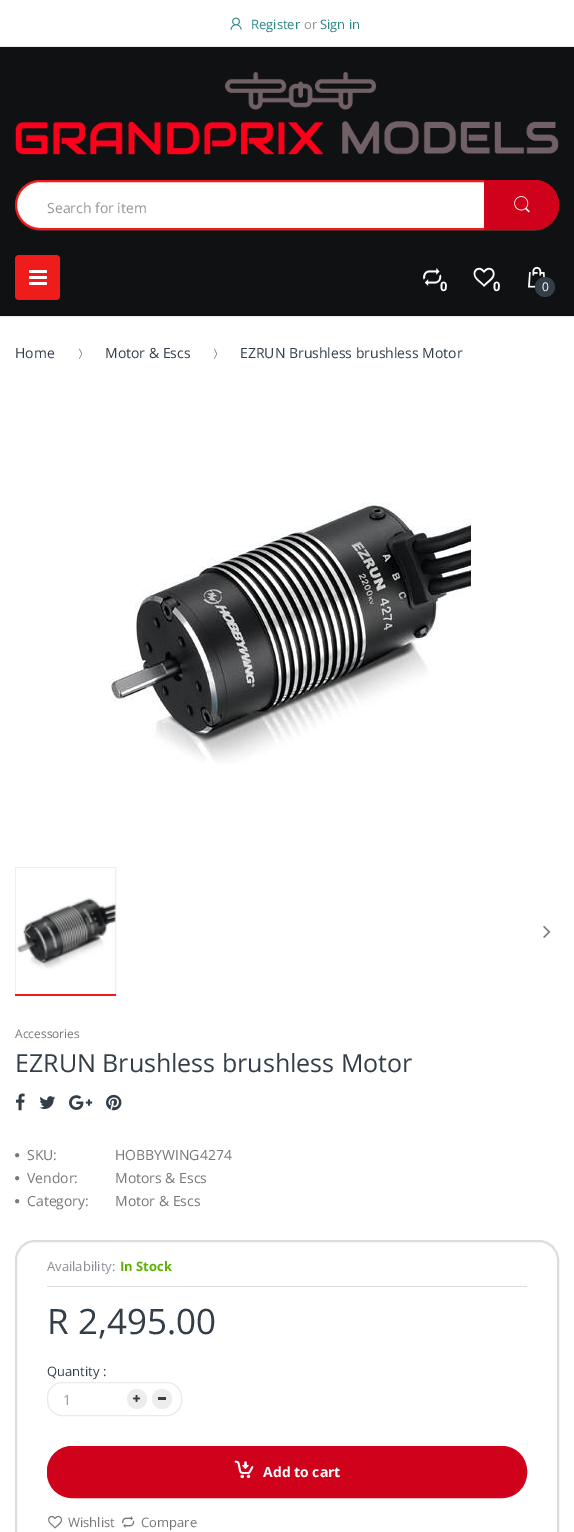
%!PS-Adobe-3.0
%%BoundingBox: 0 0 574 1532
%%LanguageLevel: 3
%%Pages: 1
%%EndComments
%%BeginProlog
/setink { dup -16 bitshift 255 div exch dup -8 bitshift 255 and 255 div exch 255 and 255 div setrgbcolor } def
/usefont { [ exch dup neg 0 0 3 -1 roll 0 0 ] selectfont } def
/disc { newpath 0 360 arc closepath } def
/rrect { 5 dict begin { /r /h /w /y /x } { exch def } forall
  x r add y moveto x w add y 2 copy h add r arct x w add y h add x 1 index r arct
  x y h add x y r arct x y 2 copy exch w add exch r arct closepath end } def
/drawimage { 5 dict begin { /h /w /y /x /name } { exch def } forall
  gsave x y translate w h scale
  w h 8 [w 0 0 h 0 0] name (r) file false 3 colorimage grestore end } def
%%EndProlog
%%BeginSetup
<< /PageSize [574 1532] >> setpagedevice
%%EndSetup
%%Page: 1 1
0 1532 translate 1 -1 scale
4 setmiterlimit
16#FFFFFF setink
0 0 574 1532 rectfill
16#0F1112 setink
0 47 574 269 rectfill
16#EAEAEA setink
0 46 574 1 rectfill
(img1.raw) 230 17 12 13 drawimage
/OpenSans-Regular 13 usefont
16#2B8686 setink
251 29 moveto (Register) show
16#959595 setink
304 29 moveto (or) show
16#2B8686 setink
320 29 moveto (Sign in) show
(img2.raw) 15 72 544 83 drawimage
16#27292A setink
15 205 moveto 15 219 26 231 40 231 curveto 534 231 lineto 548 231 559 219 559 205 curveto 559 219 548 230 534 230 curveto 40 230 lineto 26 230 15 219 15 205 curveto closepath fill
16#FFFFFF setink
16 181 542 48 24 rrect gsave fill grestore
16#F01B1B setink
2 setlinewidth
stroke
/OpenSans-Regular 14 usefont
16#959595 setink
47 213 moveto (Search for item) show
16#D0021B setink
484 180 moveto 534 180 lineto 548 180 559 191 559 205 curveto 559 219 548 230 534 230 curveto 484 230 lineto closepath fill
(img3.raw) 514 196 16 17 drawimage
16#F01B1B setink
15 255 45 45 4 rrect fill
(img4.raw) 29 270 18 15 drawimage
(img5.raw) 423 268 19 18 drawimage
/OpenSans-Bold 13 usefont
16#FFFFFF setink
440 291 moveto (0) show
(img6.raw) 473 267 22 20 drawimage
493 291 moveto (0) show
(img7.raw) 528 266 17 22 drawimage
16#333E48 setink
545 287 10 disc fill
/OpenSans-Regular 12 usefont
16#FFFFFF setink
542 291 moveto (0) show
16#EAEAEA setink
0 316 574 1 rectfill
/OpenSans-Regular 14 usefont
16#333E48 setink
15 358 moveto (Home) show
(img8.raw) 79 348 4 11 drawimage
105 358 moveto (Motor & Escs) show
(img8.raw) 214 348 4 11 drawimage
240 358 moveto (EZRUN Brushless brushless Motor) show
(img9.raw) 111 502 360 262 drawimage
16#EAEAEA setink
1 setlinewidth
15.5 867.5 100 128 rectstroke
(img10.raw) 15 867 101 127 drawimage
16#F01B1B setink
15 994 101 2 rectfill
(img11.raw) 23 925 8 13 drawimage
(img12.raw) 543 925 8 13 drawimage
/OpenSans-Regular 12 usefont
16#7C7676 setink
15 1038 moveto (Accessories) show
/OpenSans-Regular 25 usefont
16#333E48 setink
15 1072 moveto (EZRUN Brushless brushless Motor) show
(img13.raw) 15 1093 10 18 drawimage
(img14.raw) 39 1096 17 13 drawimage
(img15.raw) 69 1095 24 15 drawimage
(img16.raw) 106 1094 16 17 drawimage
(img17.raw) 15 1153 5 5 drawimage
/OpenSans-Regular 14 usefont
16#7C7676 setink
27 1160 moveto (SKU:) show
115 1160 moveto (HOBBYWING4274) show
(img17.raw) 15 1176 5 5 drawimage
27 1183 moveto (Vendor:) show
115 1183 moveto (Motors & Escs) show
(img17.raw) 15 1199 5 5 drawimage
27 1206 moveto (Category:) show
115 1206 moveto (Motor & Escs) show
16#DDDDDD setink
2 setlinewidth
16 1241 542 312 19 rrect stroke
47 1286 480 1 rectfill
/OpenSans-Regular 13 usefont
16#8F8E94 setink
47 1271 moveto (Availability:) show
/OpenSans-Bold 13 usefont
16#5BB300 setink
120 1271 moveto (In Stock) show
/OpenSans-Regular 35 usefont
16#333E48 setink
47 1334 moveto (R 2,495.00) show
/OpenSans-Regular 13 usefont
47 1376 moveto (Quantity :) show
16#EAEAEA setink
1 setlinewidth
47.5 1382.5 134 33 14.5 rrect stroke
/OpenSans-Regular 14 usefont
16#A0A0A0 setink
63 1405 moveto (1) show
16#EDEDED setink
137 1399 10 disc fill
(img18.raw) 133 1394 8 8 drawimage
162 1399 10 disc fill
16#333E48 setink
158 1397 8 3 rectfill
16#D0021B setink
47.5 1446.5 479 51 24.5 rrect gsave fill grestore
stroke
(img19.raw) 234 1460 20 19 drawimage
/OpenSans-Bold 14 usefont
16#FFFFFF setink
263 1477 moveto (Add to cart) show
(img20.raw) 48 1515 14 14 drawimage
/OpenSans-Regular 13 usefont
16#7C7676 setink
68 1527 moveto (Wishlist) show
(img21.raw) 122 1516 13 12 drawimage
141 1527 moveto (Compare) show
showpage
%%EOF
